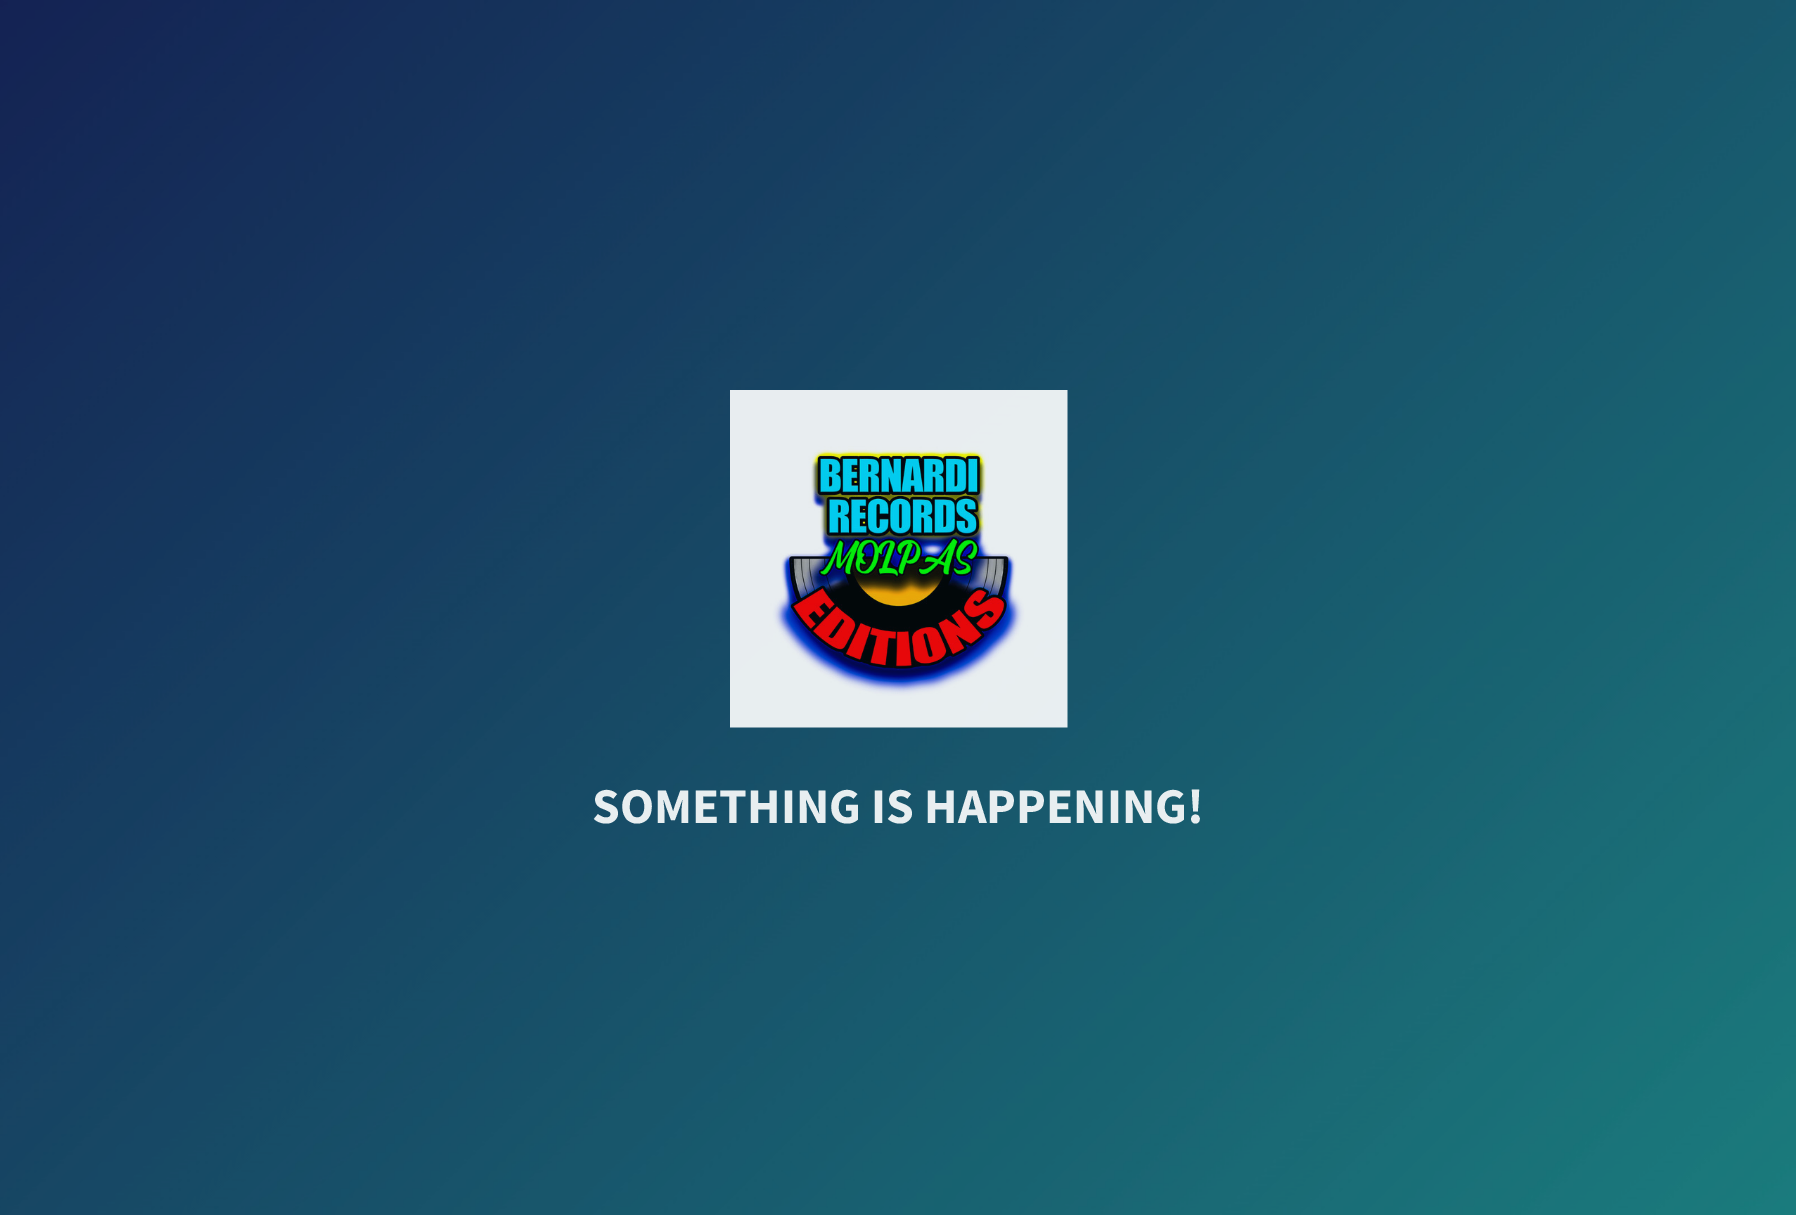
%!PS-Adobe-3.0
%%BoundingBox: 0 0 1796 1215
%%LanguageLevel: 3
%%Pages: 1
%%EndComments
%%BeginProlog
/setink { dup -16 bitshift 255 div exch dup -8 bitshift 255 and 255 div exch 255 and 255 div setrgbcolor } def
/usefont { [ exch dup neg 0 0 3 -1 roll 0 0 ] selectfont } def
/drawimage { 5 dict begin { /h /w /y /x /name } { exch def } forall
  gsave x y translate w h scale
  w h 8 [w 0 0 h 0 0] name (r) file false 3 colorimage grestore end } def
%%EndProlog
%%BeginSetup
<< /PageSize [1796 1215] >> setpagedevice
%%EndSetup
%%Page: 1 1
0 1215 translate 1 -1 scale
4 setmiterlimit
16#FFFFFF setink
0 0 1796 1215 rectfill
(img1.raw) 0 0 1796 1215 drawimage
(img2.raw) 730 390 338 338 drawimage
/SourceSansPro-Bold 50 usefont
16#E8EEF0 setink
592 823 moveto (SOMETHING IS HAPPENING!) show
showpage
%%EOF
